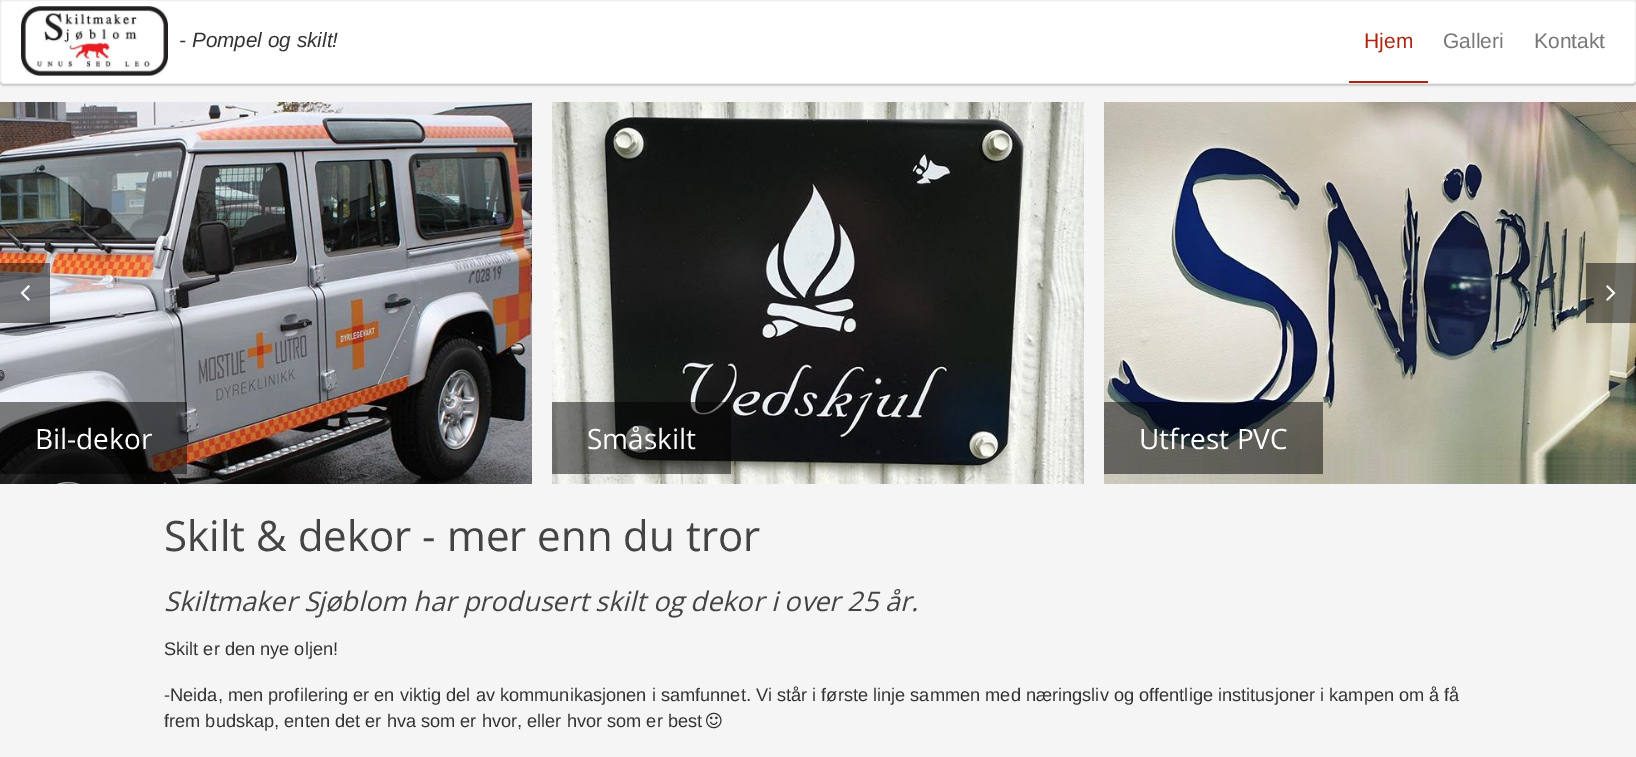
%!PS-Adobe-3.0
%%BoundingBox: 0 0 1636 757
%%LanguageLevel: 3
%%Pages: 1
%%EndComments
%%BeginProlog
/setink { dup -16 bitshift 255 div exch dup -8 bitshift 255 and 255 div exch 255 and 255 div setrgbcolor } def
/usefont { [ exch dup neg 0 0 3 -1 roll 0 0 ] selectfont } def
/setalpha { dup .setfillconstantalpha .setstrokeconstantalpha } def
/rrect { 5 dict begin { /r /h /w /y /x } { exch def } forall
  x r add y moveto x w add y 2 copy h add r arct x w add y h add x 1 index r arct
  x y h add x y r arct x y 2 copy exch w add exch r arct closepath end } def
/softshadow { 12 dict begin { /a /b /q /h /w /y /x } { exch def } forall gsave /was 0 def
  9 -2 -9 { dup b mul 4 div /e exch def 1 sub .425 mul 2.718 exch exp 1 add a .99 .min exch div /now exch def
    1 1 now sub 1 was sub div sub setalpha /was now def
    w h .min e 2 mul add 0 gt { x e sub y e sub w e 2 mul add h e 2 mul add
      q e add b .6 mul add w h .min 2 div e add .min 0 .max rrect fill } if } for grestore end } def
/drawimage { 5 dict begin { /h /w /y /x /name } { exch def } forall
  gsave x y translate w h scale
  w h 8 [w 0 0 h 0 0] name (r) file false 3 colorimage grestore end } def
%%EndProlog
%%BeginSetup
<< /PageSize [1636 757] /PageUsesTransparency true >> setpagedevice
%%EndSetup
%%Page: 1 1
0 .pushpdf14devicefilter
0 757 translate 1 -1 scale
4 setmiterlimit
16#F5F5F5 setink
0 0 1636 757 rectfill
16#000000 setink
0 1 1636 84 4 1 0.24 softshadow
0 1 1636 84 4 1.5 0.12 softshadow
16#FFFFFF setink
0.5 0.5 1635 83 3.5 rrect gsave fill grestore
16#EEEEEE setink
stroke
(img1.raw) 21 6 147 70 drawimage
/LiberationSans-Italic 20.75 usefont
16#333333 setink
179 47 moveto (- Pompel og skilt!) show
16#AE2310 setink
1349 81 79 2 rectfill
/LiberationSans-Regular 21 usefont
1364 48 moveto (Hjem) show
16#777777 setink
1443 48 moveto (Galleri) show
1534 48 moveto (Kontakt) show
(img4.raw) 0 102 532 382 drawimage
0.5 setalpha
16#000000 setink
0 263 50 60 rectfill
1 setalpha
(img2.raw) 20 285 10 16 drawimage
(img6.raw) 1104 102 532 382 drawimage
0.5 setalpha
1586 263 50 60 rectfill
1 setalpha
(img3.raw) 1606 285 10 16 drawimage
0.5 setalpha
0 402 187 72 rectfill
/OpenSans-Regular 28 usefont
1 setalpha
16#FFFFFF setink
35 449 moveto (Bil-dekor) show
(img5.raw) 552 102 532 382 drawimage
0.5 setalpha
16#000000 setink
552 402 179 72 rectfill
1 setalpha
16#FFFFFF setink
587 449 moveto (Småskilt) show
0.5 setalpha
16#000000 setink
1104 402 219 72 rectfill
1 setalpha
16#FFFFFF setink
1139 449 moveto (Utfrest PVC) show
/OpenSans-Regular 42 usefont
16#444444 setink
164 551 moveto (Skilt & dekor - mer enn du tror) show
/OpenSans-Italic 27 usefont
164 611 moveto (Skiltmaker Sjøblom har produsert skilt og dekor i over 25 år.) show
/LiberationSans-Regular 18.2 usefont
16#333333 setink
[
    [(Skilt er den nye oljen!) 164 655]
    [(-Neida, men profilering er en viktig del av kommunikasjonen i samfunnet. Vi står i første linje sammen med næringsliv og offentlige institusjoner i kampen om å få) 164 701]
    [(frem budskap, enten det er hva som er hvor, eller hvor som er best) 164 727]
] { aload pop moveto show } forall
(img7.raw) 706 712 16 17 drawimage
.poppdf14devicefilter showpage
%%EOF
